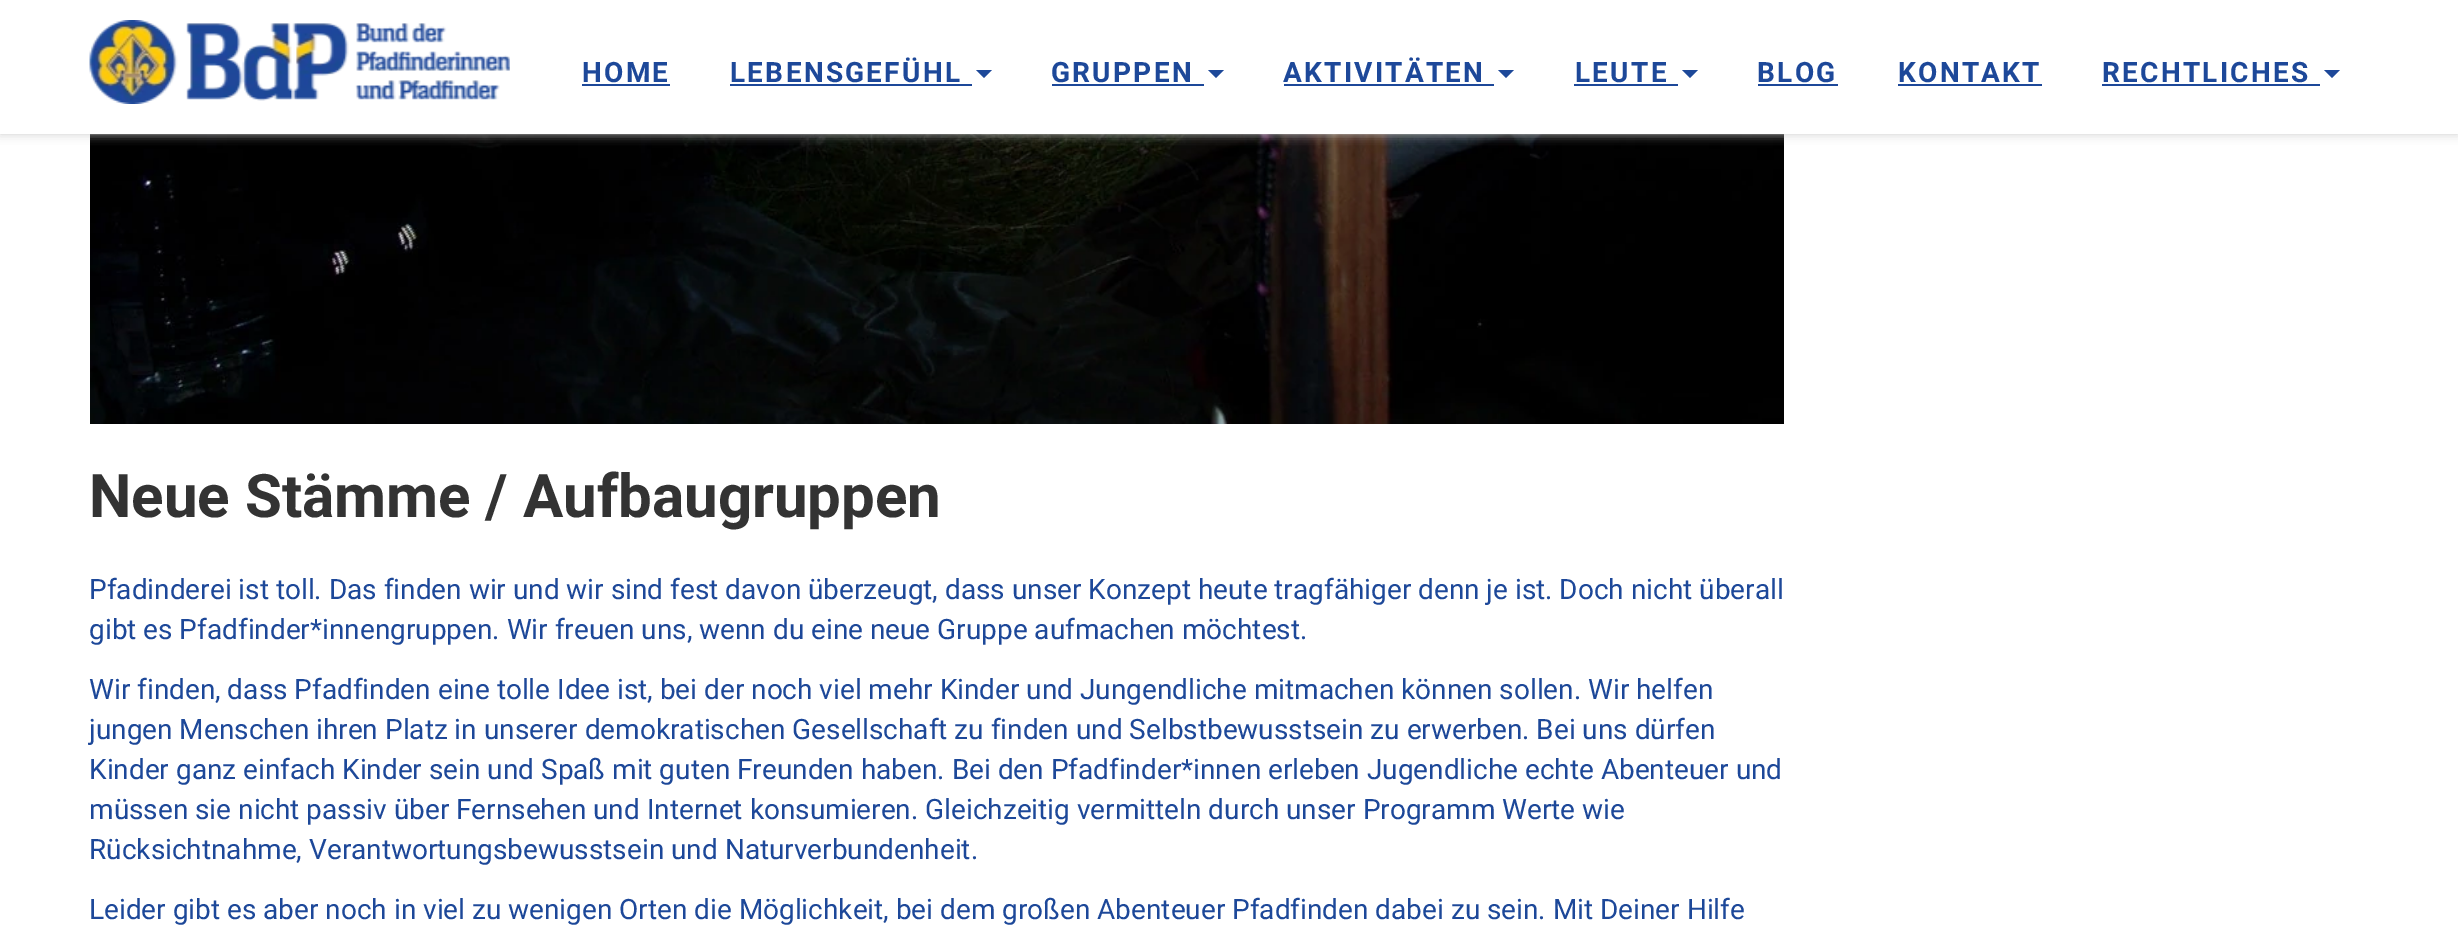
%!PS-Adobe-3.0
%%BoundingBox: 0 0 2458 943
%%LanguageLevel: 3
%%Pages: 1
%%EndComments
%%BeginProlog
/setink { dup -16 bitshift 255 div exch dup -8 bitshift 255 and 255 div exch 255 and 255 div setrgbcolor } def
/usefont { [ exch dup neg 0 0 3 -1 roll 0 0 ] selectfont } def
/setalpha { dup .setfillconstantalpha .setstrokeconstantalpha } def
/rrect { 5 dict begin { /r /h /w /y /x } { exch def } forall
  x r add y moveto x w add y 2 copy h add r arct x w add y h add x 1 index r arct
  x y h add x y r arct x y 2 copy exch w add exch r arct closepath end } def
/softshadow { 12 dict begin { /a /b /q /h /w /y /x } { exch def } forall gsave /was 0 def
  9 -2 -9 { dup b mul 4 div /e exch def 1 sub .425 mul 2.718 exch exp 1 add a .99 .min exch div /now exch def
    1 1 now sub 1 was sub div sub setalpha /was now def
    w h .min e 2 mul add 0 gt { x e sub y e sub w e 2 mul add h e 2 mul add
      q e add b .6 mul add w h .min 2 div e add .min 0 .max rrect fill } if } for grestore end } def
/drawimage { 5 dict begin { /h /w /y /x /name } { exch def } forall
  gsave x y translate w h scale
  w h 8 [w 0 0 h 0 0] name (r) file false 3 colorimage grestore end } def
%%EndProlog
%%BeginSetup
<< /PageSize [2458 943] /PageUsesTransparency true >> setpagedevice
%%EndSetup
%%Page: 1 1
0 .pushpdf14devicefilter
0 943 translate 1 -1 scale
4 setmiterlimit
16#FFFFFF setink
0 0 2458 943 rectfill
(img2.raw) 90 134 1694 290 drawimage
16#CCCCCC setink
0 0 2458 134 0 5 1 softshadow
16#FFFFFF setink
0 0 2458 134 rectfill
(img1.raw) 89 20 421 84 drawimage
/Roboto-Bold 28 usefont
16#1D4899 setink
582 82 moveto 2.25 0 (HOME) ashow
582 84 88 2 rectfill
730 82 moveto 2.25 0 (LEBENSGEFÜHL) ashow
730 84 242 2 rectfill
976 70 moveto 992 70 lineto 984 78 lineto closepath fill
1051 82 moveto 2.25 0 (GRUPPEN) ashow
1052 84 152 2 rectfill
1208 70 moveto 1224 70 lineto 1216 78 lineto closepath fill
1283 82 moveto 2.25 0 (AKTIVITÄTEN) ashow
1284 84 210 2 rectfill
1498 70 moveto 1514 70 lineto 1506 78 lineto closepath fill
1575 82 moveto 2.25 0 (LEUTE) ashow
1574 84 104 2 rectfill
1682 70 moveto 1698 70 lineto 1690 78 lineto closepath fill
1757 82 moveto 2.25 0 (BLOG) ashow
1758 84 80 2 rectfill
1898 82 moveto 2.25 0 (KONTAKT) ashow
1898 84 144 2 rectfill
2102 82 moveto 2.25 0 (RECHTLICHES) ashow
2102 84 218 2 rectfill
2324 70 moveto 2340 70 lineto 2332 78 lineto closepath fill
/Roboto-Bold 60 usefont
16#333333 setink
89 517 moveto (Neue Stämme / Aufbaugruppen) show
/Roboto-Regular 28 usefont
16#1D4899 setink
[
    [(Pfadinderei ist toll. Das finden wir und wir sind fest davon überzeugt, dass unser Konzept heute tragfähiger denn je ist. Doch nicht überall) 89 599]
    [(gibt es Pfadfinder*innengruppen. Wir freuen uns, wenn du eine neue Gruppe aufmachen möchtest.) 89 639]
    [(Wir finden, dass Pfadfinden eine tolle Idee ist, bei der noch viel mehr Kinder und Jungendliche mitmachen können sollen. Wir helfen) 89 699]
    [(jungen Menschen ihren Platz in unserer demokratischen Gesellschaft zu finden und Selbstbewusstsein zu erwerben. Bei uns dürfen) 89 739]
    [(Kinder ganz einfach Kinder sein und Spaß mit guten Freunden haben. Bei den Pfadfinder*innen erleben Jugendliche echte Abenteuer und) 89 779]
    [(müssen sie nicht passiv über Fernsehen und Internet konsumieren. Gleichzeitig vermitteln durch unser Programm Werte wie) 89 819]
    [(Rücksichtnahme, Verantwortungsbewusstsein und Naturverbundenheit.) 89 859]
    [(Leider gibt es aber noch in viel zu wenigen Orten die Möglichkeit, bei dem großen Abenteuer Pfadfinden dabei zu sein. Mit Deiner Hilfe) 89 919]
] { aload pop moveto show } forall
.poppdf14devicefilter showpage
%%EOF
